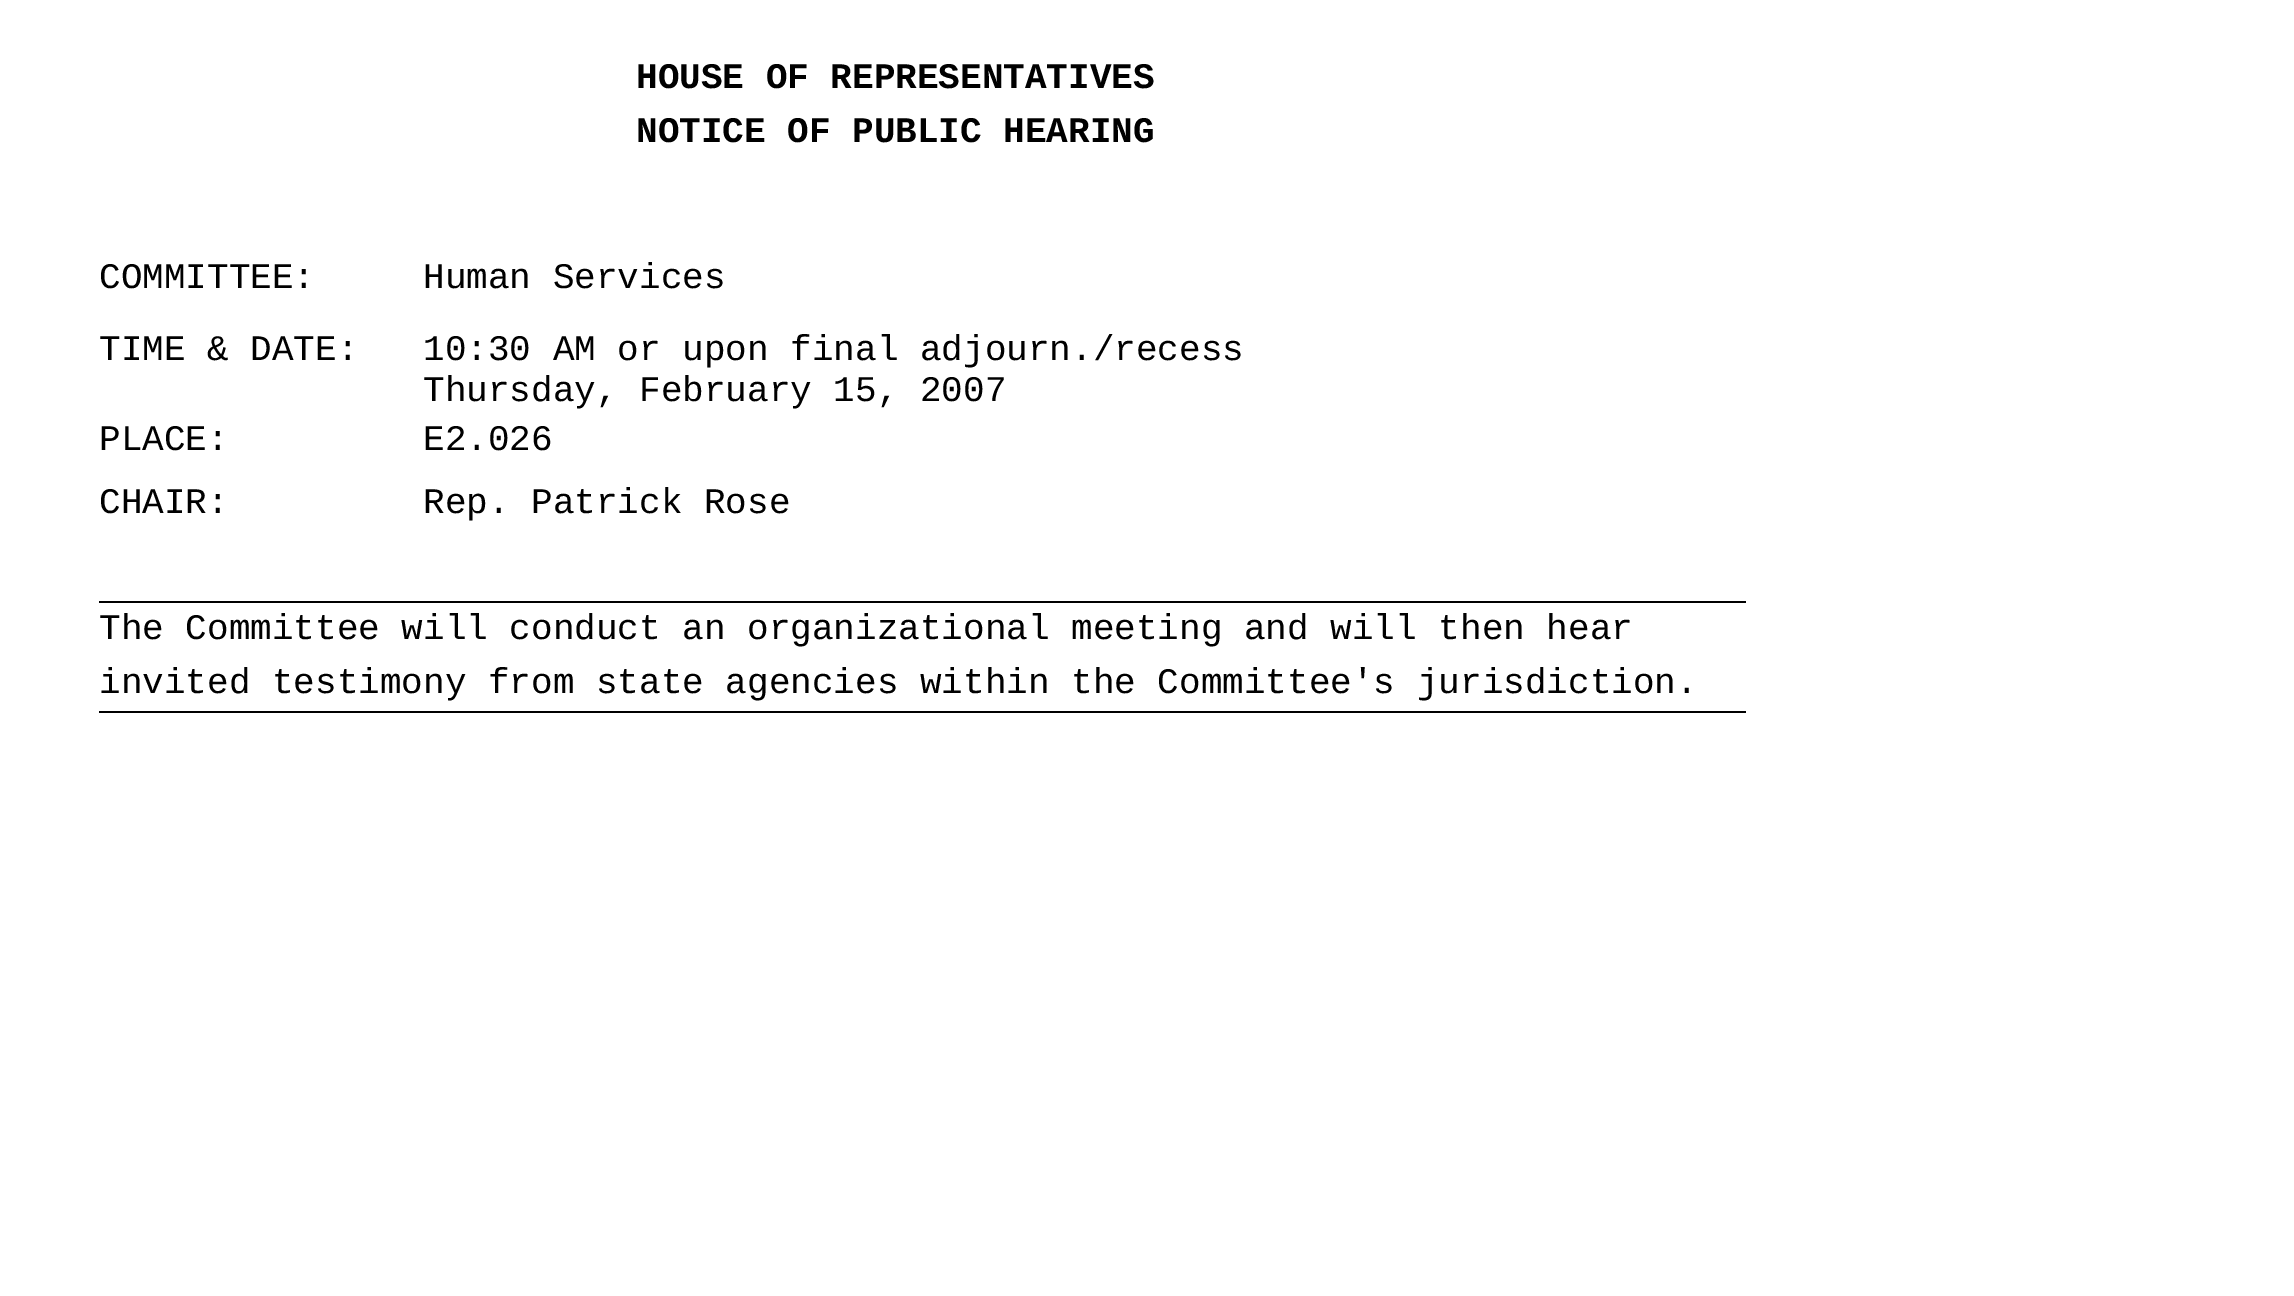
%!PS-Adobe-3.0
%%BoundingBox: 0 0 2294 1296
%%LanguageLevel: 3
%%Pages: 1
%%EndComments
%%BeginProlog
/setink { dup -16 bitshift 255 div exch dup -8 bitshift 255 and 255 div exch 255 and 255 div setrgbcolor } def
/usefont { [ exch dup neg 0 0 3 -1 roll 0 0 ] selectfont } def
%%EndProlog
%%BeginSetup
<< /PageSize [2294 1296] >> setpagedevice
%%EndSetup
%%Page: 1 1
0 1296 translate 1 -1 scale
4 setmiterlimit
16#FFFFFF setink
0 0 2294 1296 rectfill
/LiberationMono-Bold 36 usefont
16#000000 setink
636 88 moveto (HOUSE OF REPRESENTATIVES) show
636 142 moveto (NOTICE OF PUBLIC HEARING) show
/LiberationMono-Regular 36 usefont
[
    [(COMMITTEE:) 99 288]
    [(Human Services) 423 288]
    [(TIME & DATE:) 99 360]
    [(10:30 AM or upon final adjourn./recess) 423 360]
    [(Thursday, February 15, 2007) 423 401]
    [(PLACE:) 99 450]
    [(E2.026) 423 450]
    [(CHAIR:) 99 513]
    [(Rep. Patrick Rose) 423 513]
] { aload pop moveto show } forall
99 601 1647 2 rectfill
99 639 moveto (The Committee will conduct an organizational meeting and will then hear) show
99 693 moveto (invited testimony from state agencies within the Committee's jurisdiction.) show
99 711 1647 2 rectfill
showpage
%%EOF
